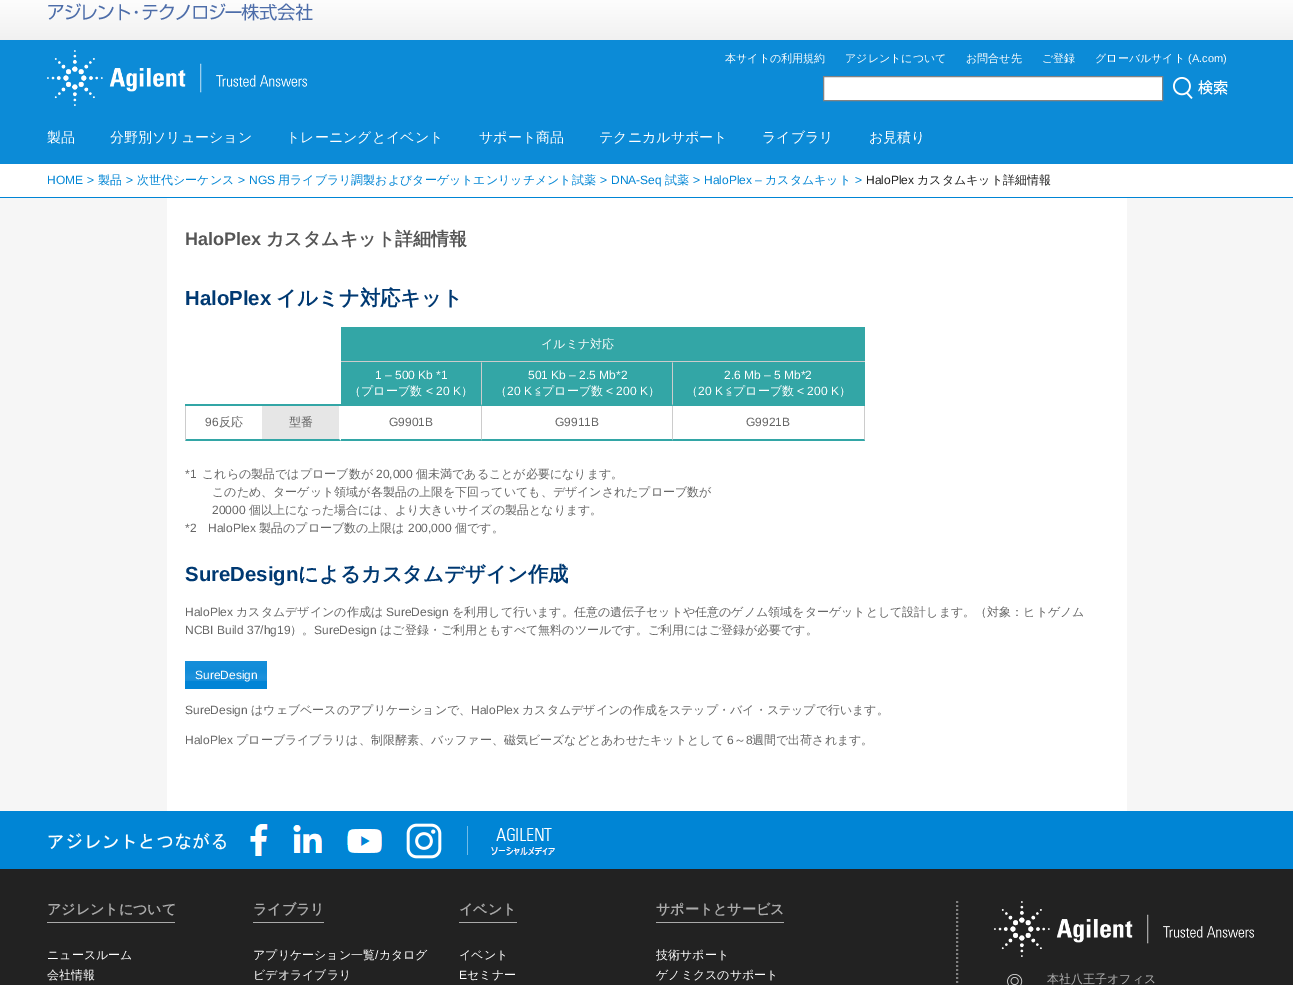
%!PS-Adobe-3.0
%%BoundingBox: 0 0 1293 985
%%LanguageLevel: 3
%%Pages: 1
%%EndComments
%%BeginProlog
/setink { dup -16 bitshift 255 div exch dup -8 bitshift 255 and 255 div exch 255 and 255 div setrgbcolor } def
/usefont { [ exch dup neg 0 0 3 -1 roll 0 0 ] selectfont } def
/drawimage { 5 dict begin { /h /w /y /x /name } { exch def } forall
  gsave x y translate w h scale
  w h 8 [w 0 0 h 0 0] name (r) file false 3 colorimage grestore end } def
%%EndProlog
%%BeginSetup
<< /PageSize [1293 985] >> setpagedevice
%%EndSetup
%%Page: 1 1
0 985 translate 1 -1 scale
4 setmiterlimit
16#F6F6F6 setink
0 0 1293 985 rectfill
(img1.raw) 0 0 1293 40 drawimage
(img2.raw) 48 3 265 18 drawimage
16#0C8BD7 setink
0 40 1293 124 rectfill
(img3.raw) 47 50 260 56 drawimage
/WenQuanYiZenHei-Medium 11 usefont
16#FFFFFF setink
[
    [(本サイトの利用規約) 725 62]
    [(アジレントについて) 845 62]
    [(お問合せ先) 966 62]
    [(ご登録) 1042 62]
    [(グローバルサイト) 1095 62]
] { aload pop moveto show } forall
/LiberationSans-Regular 11 usefont
1188 62 moveto (\(A.com\)) show
823.5 76.5 moveto 1162.5 76.5 lineto 1162.5 100.5 lineto 823.5 100.5 lineto closepath gsave fill grestore
16#828282 setink
stroke
(img4.raw) 1173 77 55 22 drawimage
/WenQuanYiZenHei-Medium 14 usefont
16#FFFFFF setink
[
    [(製品) 47 142]
    [(分野別ソリューション) 110 142]
    [(トレーニングとイベント) 286 142]
    [(サポート商品) 479 142]
    [(テクニカルサポート) 599 142]
    [(ライブラリ) 762 142]
    [(お見積り) 869 142]
] { aload pop moveto show } forall
0 164 1293 33 rectfill
16#0085D5 setink
0 197 1293 1 rectfill
/LiberationSans-Regular 12 usefont
47 184 moveto (HOME) show
87 184 moveto (>) show
/WenQuanYiZenHei-Medium 12 usefont
98 184 moveto (製品) show
/LiberationSans-Regular 12 usefont
126 184 moveto (>) show
/WenQuanYiZenHei-Medium 12 usefont
137 184 moveto (次世代シーケンス) show
/LiberationSans-Regular 12 usefont
238 184 moveto (>) show
249 184 moveto (NGS) show
/WenQuanYiZenHei-Medium 12 usefont
278 184 moveto (用ライブラリ調製およびターゲットエンリッチメント試薬) show
/LiberationSans-Regular 12 usefont
600 184 moveto (>) show
611 184 moveto (DNA-Seq) show
/WenQuanYiZenHei-Medium 12 usefont
665 184 moveto (試薬) show
/LiberationSans-Regular 12 usefont
693 184 moveto (>) show
704 184 moveto (HaloPlex –) show
/WenQuanYiZenHei-Medium 12 usefont
765 184 moveto (カスタムキット) show
/LiberationSans-Regular 12 usefont
855 184 moveto (>) show
16#202020 setink
866 184 moveto (HaloPlex) show
/WenQuanYiZenHei-Medium 12 usefont
917 184 moveto (カスタムキット詳細情報) show
16#FFFFFF setink
167 198 960 613 rectfill
/LiberationSans-Bold 18 usefont
16#555555 setink
185 245 moveto (HaloPlex) show
/WenQuanYiZenHei-Bold 18 usefont
266 245 moveto (カスタムキット詳細情報) show
/LiberationSans-Bold 20.4 usefont
16#003972 setink
185 305 moveto (HaloPlex) show
/WenQuanYiZenHei-Bold 20.4 usefont
276 305 moveto (イルミナ対応キット) show
[
    [341 327 332 34 16#33A6A6]
    [341 361 332 1 16#CCCCCC]
    [673 328 191 33 16#33A6A6]
    [673 327 192 1 16#33A6A6]
    [864 327 1 35 16#33A6A6]
    [673 361 192 1 16#CCCCCC]
] { aload pop setink rectfill } forall
/WenQuanYiZenHei-Medium 12 usefont
16#FFFFFF setink
541 348 moveto (イルミナ対応) show
16#33A6A6 setink
341 363 140 41 rectfill
341 362 524 1 rectfill
16#CCCCCC setink
482 362 moveto 482 406 lineto 481 404 lineto 481 363 lineto closepath fill
16#33A6A6 setink
482 406 moveto 341 406 lineto 341 404 lineto 481 404 lineto closepath fill
/LiberationSans-Regular 12 usefont
16#FFFFFF setink
375 379 moveto (1 – 500 Kb *1) show
/WenQuanYiZenHei-Medium 12 usefont
349 395 moveto (（プローブ数) show
/LiberationSans-Regular 12 usefont
426 395 moveto (< 20 K) show
/WenQuanYiZenHei-Medium 12 usefont
461 395 moveto (）) show
16#33A6A6 setink
482 363 190 41 rectfill
16#CCCCCC setink
673 362 moveto 673 406 lineto 672 404 lineto 672 363 lineto closepath fill
16#33A6A6 setink
673 406 moveto 482 406 lineto 482 404 lineto 672 404 lineto closepath fill
/LiberationSans-Regular 12 usefont
16#FFFFFF setink
528 379 moveto (501 Kb – 2.5 Mb*2) show
/WenQuanYiZenHei-Medium 12 usefont
495 395 moveto (（) show
/LiberationSans-Regular 12 usefont
507 395 moveto (20 K) show
/WenQuanYiZenHei-Medium 12 usefont
535 395 moveto (≦プローブ数) show
/LiberationSans-Regular 12 usefont
606 395 moveto (< 200 K) show
/WenQuanYiZenHei-Medium 12 usefont
648 395 moveto (）) show
[
    [673 363 191 41 16#33A6A6]
    [864 362 1 44 16#33A6A6]
    [673 404 192 2 16#33A6A6]
] { aload pop setink rectfill } forall
/LiberationSans-Regular 12 usefont
16#FFFFFF setink
724 379 moveto (2.6 Mb – 5 Mb*2) show
/WenQuanYiZenHei-Medium 12 usefont
686 395 moveto (（) show
/LiberationSans-Regular 12 usefont
698 395 moveto (20 K) show
/WenQuanYiZenHei-Medium 12 usefont
726 395 moveto (≦プローブ数) show
/LiberationSans-Regular 12 usefont
797 395 moveto (< 200 K) show
/WenQuanYiZenHei-Medium 12 usefont
839 395 moveto (）) show
16#33A6A6 setink
185 404 156 2 rectfill
262 441 moveto 185 441 lineto 186 439 lineto 262 439 lineto closepath fill
16#CCCCCC setink
185 441 moveto 185 406 lineto 186 406 lineto 186 439 lineto closepath fill
/LiberationSans-Regular 12 usefont
16#666666 setink
205 426 moveto (96) show
/WenQuanYiZenHei-Medium 12 usefont
219 426 moveto (反応) show
16#E6E6E6 setink
262 406 77 33 rectfill
16#33A6A6 setink
341 441 moveto 262 441 lineto 262 439 lineto 339 439 lineto closepath fill
16#666666 setink
289 426 moveto (型番) show
16#CCCCCC setink
482 406 moveto 482 441 lineto 481 439 lineto 481 406 lineto closepath fill
16#33A6A6 setink
482 441 moveto 341 441 lineto 341 439 lineto 481 439 lineto closepath fill
/LiberationSans-Regular 12 usefont
16#666666 setink
389 426 moveto (G9901B) show
16#CCCCCC setink
673 406 moveto 673 441 lineto 672 439 lineto 672 406 lineto closepath fill
16#33A6A6 setink
673 441 moveto 482 441 lineto 482 439 lineto 672 439 lineto closepath fill
16#666666 setink
555 426 moveto (G9911B) show
16#CCCCCC setink
865 406 moveto 865 441 lineto 864 439 lineto 864 406 lineto closepath fill
16#33A6A6 setink
865 441 moveto 673 441 lineto 673 439 lineto 864 439 lineto closepath fill
16#666666 setink
746 426 moveto (G9921B) show
185 478 moveto (*1) show
/WenQuanYiZenHei-Medium 12 usefont
202 478 moveto (これらの製品ではプローブ数が) show
/LiberationSans-Regular 12 usefont
376 478 moveto (20,000) show
/WenQuanYiZenHei-Medium 12 usefont
416 478 moveto (個未満であることが必要になります。) show
212 496 moveto (このため、ターゲット領域が各製品の上限を下回っていても、デザインされたプローブ数が) show
/LiberationSans-Regular 12 usefont
212 514 moveto (20000) show
/WenQuanYiZenHei-Medium 12 usefont
249 514 moveto (個以上になった場合には、より大きいサイズの製品となります。) show
/LiberationSans-Regular 12 usefont
185 532 moveto (*2) show
208 532 moveto (HaloPlex) show
/WenQuanYiZenHei-Medium 12 usefont
259 532 moveto (製品のプローブ数の上限は) show
/LiberationSans-Regular 12 usefont
408 532 moveto (200,000) show
/WenQuanYiZenHei-Medium 12 usefont
455 532 moveto (個です。) show
/LiberationSans-Bold 20.4 usefont
16#003972 setink
185 581 moveto (SureDesign) show
/WenQuanYiZenHei-Bold 20.4 usefont
298 581 moveto (によるカスタムデザイン作成) show
/LiberationSans-Regular 12 usefont
16#666666 setink
185 616 moveto (HaloPlex) show
/WenQuanYiZenHei-Medium 12 usefont
236 616 moveto (カスタムデザインの作成は) show
/LiberationSans-Regular 12 usefont
386 616 moveto (SureDesign) show
/WenQuanYiZenHei-Medium 12 usefont
452 616 moveto (を利用して行います。任意の遺伝子セットや任意のゲノム領域をターゲットとして設計します。（対象：ヒトゲノム) show
/LiberationSans-Regular 12 usefont
185 634 moveto (NCBI Build 37/hg19) show
/WenQuanYiZenHei-Medium 12 usefont
290 634 moveto (）。) show
/LiberationSans-Regular 12 usefont
314 634 moveto (SureDesign) show
/WenQuanYiZenHei-Medium 12 usefont
380 634 moveto (はご登録・ご利用ともすべて無料のツールです。ご利用にはご登録が必要です。) show
(img5.raw) 185 661 82 28 drawimage
/LiberationSans-Regular 12 usefont
16#FFFFFF setink
195 679 moveto (SureDesign) show
16#666666 setink
185 714 moveto (SureDesign) show
/WenQuanYiZenHei-Medium 12 usefont
251 714 moveto (はウェブベースのアプリケーションで、) show
/LiberationSans-Regular 12 usefont
471 714 moveto (HaloPlex) show
/WenQuanYiZenHei-Medium 12 usefont
522 714 moveto (カスタムデザインの作成をステップ・バイ・ステップで行います。) show
/LiberationSans-Regular 12 usefont
185 744 moveto (HaloPlex) show
/WenQuanYiZenHei-Medium 12 usefont
236 744 moveto (プローブライブラリは、制限酵素、バッファー、磁気ビーズなどとあわせたキットとして) show
/LiberationSans-Regular 12 usefont
727 744 moveto (6) show
/WenQuanYiZenHei-Medium 12 usefont
734 744 moveto (～) show
/LiberationSans-Regular 12 usefont
746 744 moveto (8) show
/WenQuanYiZenHei-Medium 12 usefont
752 744 moveto (週間で出荷されます。) show
16#222222 setink
0 869 1293 116 rectfill
16#0085D5 setink
0 811 1293 58 rectfill
(img6.raw) 48 833 178 17 drawimage
(img7.raw) 250 824 18 32 drawimage
(img8.raw) 293 825 29 28 drawimage
(img9.raw) 347 829 35 24 drawimage
(img10.raw) 406 823 36 36 drawimage
16#70BBE7 setink
467 826 1 29 rectfill
(img11.raw) 491 828 64 27 drawimage
/WenQuanYiZenHei-Bold 14 usefont
16#AAAAAA setink
47 914 moveto (アジレントについて) show
47 922 128 1 rectfill
/WenQuanYiZenHei-Medium 12 usefont
16#FFFFFF setink
47 959 moveto (ニュースルーム) show
47 979 moveto (会社情報) show
/WenQuanYiZenHei-Bold 14 usefont
16#AAAAAA setink
253 914 moveto (ライブラリ) show
253 922 71 1 rectfill
/WenQuanYiZenHei-Medium 12 usefont
16#FFFFFF setink
253 959 moveto (アプリケーション一覧 カタログ) show
/LiberationSans-Regular 12 usefont
375 959 moveto (/) show
/WenQuanYiZenHei-Medium 12 usefont
253 979 moveto (ビデオライブラリ) show
/WenQuanYiZenHei-Bold 14 usefont
16#AAAAAA setink
459 914 moveto (イベント) show
459 922 58 1 rectfill
/WenQuanYiZenHei-Medium 12 usefont
16#FFFFFF setink
459 959 moveto (イベント) show
/LiberationSans-Regular 12 usefont
459 979 moveto (E) show
/WenQuanYiZenHei-Medium 12 usefont
467 979 moveto (セミナー) show
/WenQuanYiZenHei-Bold 14 usefont
16#AAAAAA setink
656 914 moveto (サポートとサービス) show
656 922 128 1 rectfill
/WenQuanYiZenHei-Medium 12 usefont
16#FFFFFF setink
656 959 moveto (技術サポート) show
656 979 moveto (ゲノミクスのサポート) show
16#808080 setink
2 setlinewidth
[2 2] 0 setdash
957 901 moveto 957 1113 lineto stroke
(img12.raw) 994 901 260 56 drawimage
(img13.raw) 1007 974 16 11 drawimage
16#B2B2B2 setink
1047 983 moveto (本社八王子オフィス) show
showpage
%%EOF
